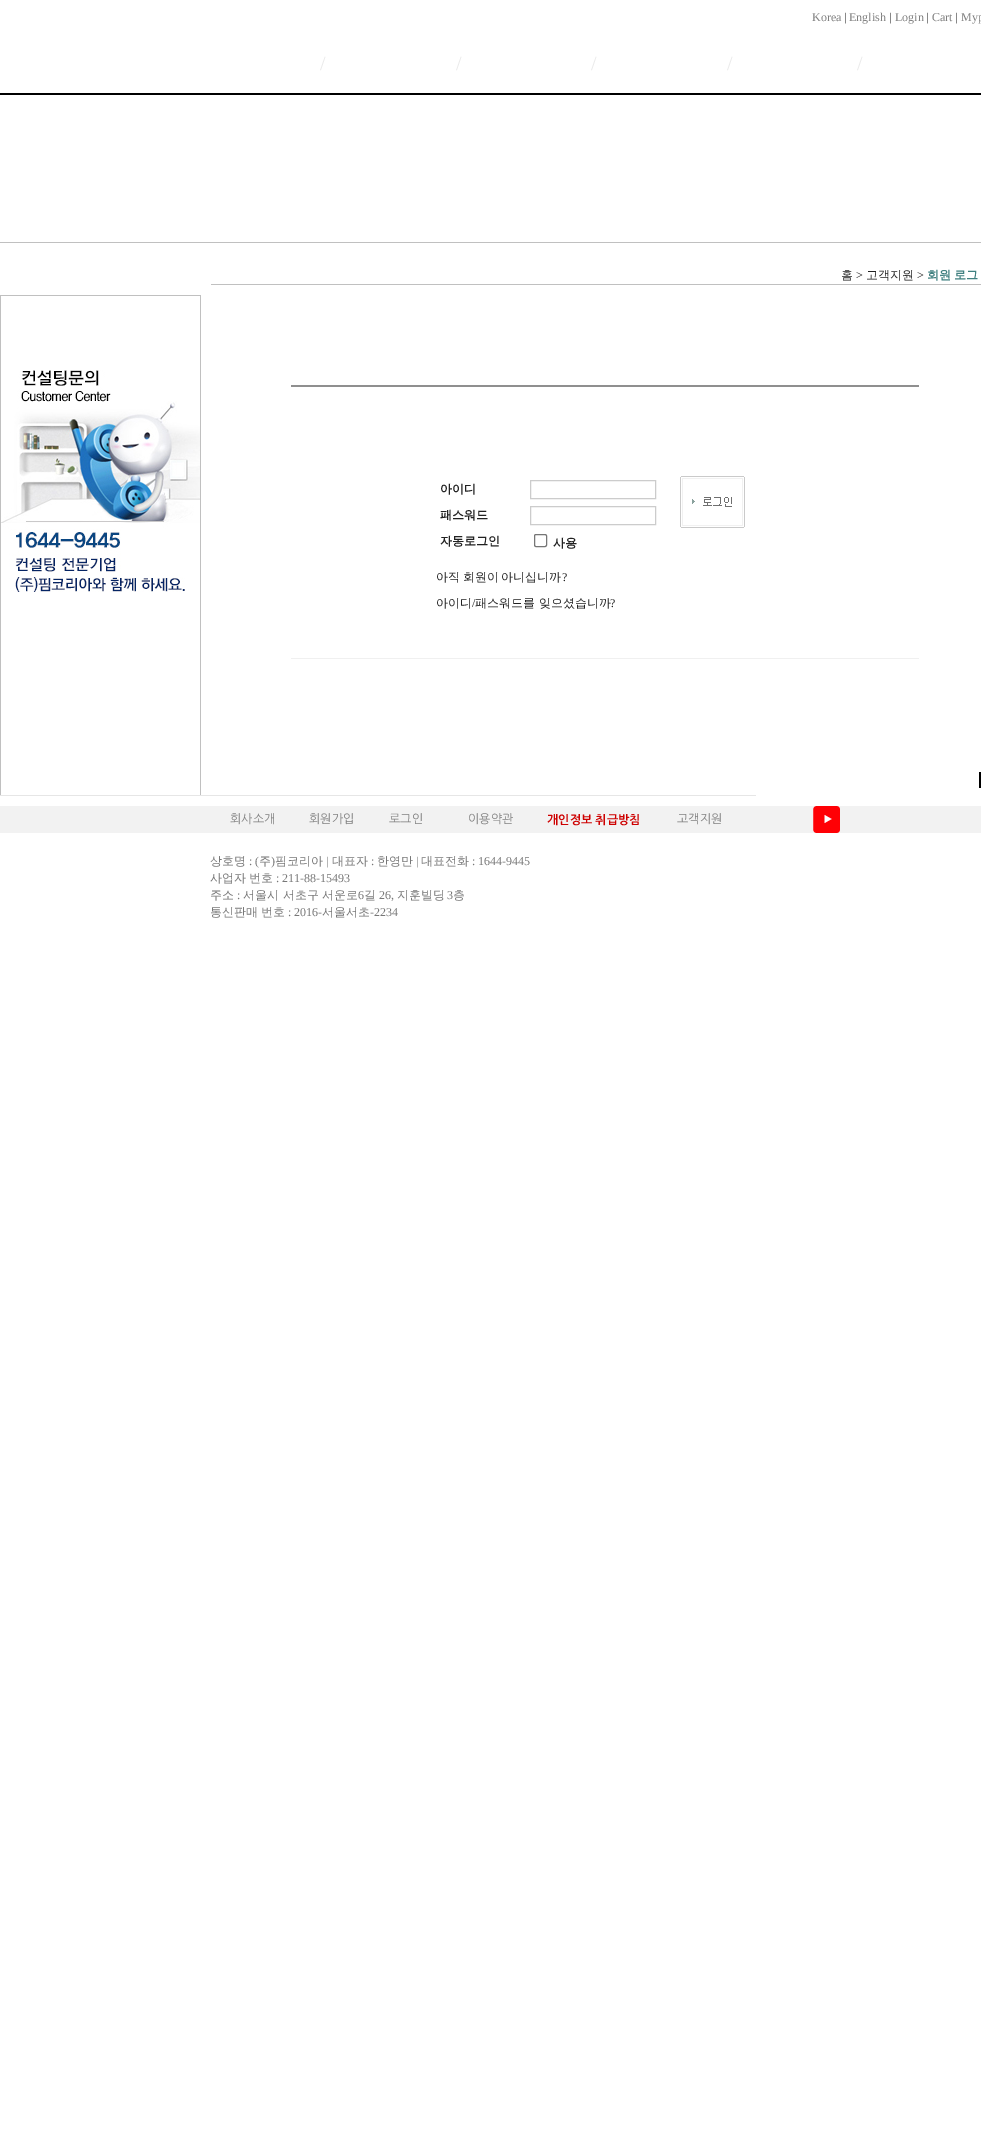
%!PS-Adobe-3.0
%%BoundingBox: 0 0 981 2138
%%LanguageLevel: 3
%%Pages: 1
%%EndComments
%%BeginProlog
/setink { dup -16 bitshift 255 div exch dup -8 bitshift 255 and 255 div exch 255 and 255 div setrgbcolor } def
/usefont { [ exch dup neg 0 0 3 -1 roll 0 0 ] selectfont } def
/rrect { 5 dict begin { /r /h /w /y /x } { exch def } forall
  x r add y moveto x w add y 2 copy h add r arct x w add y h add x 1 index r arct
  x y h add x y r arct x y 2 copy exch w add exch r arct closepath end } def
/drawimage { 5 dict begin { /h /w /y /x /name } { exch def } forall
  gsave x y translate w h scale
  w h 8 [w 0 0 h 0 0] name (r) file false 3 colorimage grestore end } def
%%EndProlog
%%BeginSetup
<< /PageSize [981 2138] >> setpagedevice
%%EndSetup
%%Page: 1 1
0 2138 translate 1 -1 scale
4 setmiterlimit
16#FFFFFF setink
0 0 981 2138 rectfill
/LiberationSerif-Regular 12 usefont
16#808080 setink
812 21 moveto (Korea) show
16#222222 setink
844 21 moveto (|) show
16#808080 setink
849 21 moveto (English) show
16#222222 setink
889 21 moveto (|) show
16#808080 setink
895 21 moveto (Login) show
16#222222 setink
926 21 moveto (|) show
16#808080 setink
932 21 moveto (Cart) show
16#222222 setink
955 21 moveto (|) show
16#808080 setink
961 21 moveto (Myp) show
/LiberationSerif-Regular 20 usefont
16#EAEAEA setink
[
    [(/) 320 70]
    [(/) 456 70]
    [(/) 591 70]
    [(/) 727 70]
    [(/) 857 70]
] { aload pop moveto show } forall
16#000000 setink
0 93 981 2 rectfill
16#C0C0C0 setink
0 242 981 1 rectfill
/WenQuanYiZenHei-Medium 12 usefont
16#222222 setink
841 279 moveto (홈) show
/LiberationSerif-Regular 12 usefont
856 279 moveto (>) show
/WenQuanYiZenHei-Medium 12 usefont
866 279 moveto (고객지원) show
/LiberationSerif-Regular 12 usefont
917 279 moveto (>) show
/WenQuanYiZenHei-Bold 12 usefont
16#408080 setink
927 279 moveto -1 0 32 (회원 로그) widthshow
[
    [211 284 770 1 16#C0C0C0]
    [0 295 201 1 16#C0C0C0]
    [200 295 1 500 16#C0C0C0]
    [0 295 1 500 16#C0C0C0]
] { aload pop setink rectfill } forall
(img1.raw) 1 370 199 222 drawimage
16#8F8F8F setink
291 385 628 2 rectfill
16#222222 setink
440 493 moveto (아이디) show
16#CCCCCC setink
530.5 480.5 125 18 rectstroke
16#222222 setink
440 519 moveto (패스워드) show
16#CCCCCC setink
530.5 506.5 125 18 rectstroke
16#222222 setink
440 545 moveto (자동로그인) show
16#767676 setink
534.5 534.5 12 12 1.5 rrect stroke
16#222222 setink
553 547 moveto (사용) show
(img2.raw) 680 476 65 52 drawimage
/WenQuanYiZenHei-Medium 12 usefont
436 581 moveto -1 0 32 (아직 회원이 아니십니까) widthshow
/LiberationSerif-Regular 12 usefont
562 581 moveto (?) show
/WenQuanYiZenHei-Medium 12 usefont
436 607 moveto (아이디) show
/LiberationSerif-Regular 12 usefont
472 607 moveto (/) show
/WenQuanYiZenHei-Medium 12 usefont
475 607 moveto (패스워드를 잊으셨습니까) show
/LiberationSerif-Regular 12 usefont
610 607 moveto (?) show
[
    [291 658 628 1 16#F0F0F0]
    [979 772 2 16 16#000000]
    [0 795 756 1 16#E6E6E6]
    [0 806 981 27 16#F2F2F2]
] { aload pop setink rectfill } forall
/NanumGothic-Regular 12 usefont
16#808080 setink
[
    [(회사소개) 230 823]
    [(회원가입) 309 823]
    [(로그인) 389 823]
    [(이용약관) 468 823]
] { aload pop moveto show } forall
/NanumGothic-Bold 12 usefont
16#CE0000 setink
547 824 moveto (개인정보 취급방침) show
/NanumGothic-Regular 12 usefont
16#808080 setink
677 823 moveto (고객지원) show
(img3.raw) 813 806 27 27 drawimage
/WenQuanYiZenHei-Medium 12 usefont
16#777777 setink
210 865 moveto (상호명) show
/LiberationSerif-Regular 12 usefont
249 865 moveto (: \() show
/WenQuanYiZenHei-Medium 12 usefont
259 865 moveto (주) show
/LiberationSerif-Regular 12 usefont
271 865 moveto (\)) show
/WenQuanYiZenHei-Medium 12 usefont
275 865 moveto (핌코리아) show
/LiberationSerif-Regular 12 usefont
326 865 moveto (|) show
/WenQuanYiZenHei-Medium 12 usefont
332 865 moveto (대표자) show
/LiberationSerif-Regular 12 usefont
371 865 moveto (:) show
/WenQuanYiZenHei-Medium 12 usefont
377 865 moveto (한영만) show
/LiberationSerif-Regular 12 usefont
416 865 moveto (|) show
/WenQuanYiZenHei-Medium 12 usefont
421 865 moveto (대표전화) show
/LiberationSerif-Regular 12 usefont
472 865 moveto (: 1644-9445) show
/WenQuanYiZenHei-Medium 12 usefont
210 882 moveto (사업자) show
249 882 moveto (번호) show
/LiberationSerif-Regular 12 usefont
276 882 moveto (: 211-88-15493) show
/WenQuanYiZenHei-Medium 12 usefont
210 899 moveto (주소) show
/LiberationSerif-Regular 12 usefont
237 899 moveto (:) show
/WenQuanYiZenHei-Medium 12 usefont
243 899 moveto (서울시 서초구 서운로) show
/LiberationSerif-Regular 12 usefont
358 899 moveto (6) show
/WenQuanYiZenHei-Medium 12 usefont
364 899 moveto (길) show
/LiberationSerif-Regular 12 usefont
379 899 moveto (26,) show
/WenQuanYiZenHei-Medium 12 usefont
397 899 moveto (지훈빌딩) show
/LiberationSerif-Regular 12 usefont
447 899 moveto (3) show
/WenQuanYiZenHei-Medium 12 usefont
[
    [(층) 453 899]
    [(통신판매) 210 916]
    [(번호) 261 916]
] { aload pop moveto show } forall
/LiberationSerif-Regular 12 usefont
288 916 moveto (: 2016-) show
/WenQuanYiZenHei-Medium 12 usefont
322 916 moveto (서울서초) show
/LiberationSerif-Regular 12 usefont
370 916 moveto (-2234) show
showpage
%%EOF
